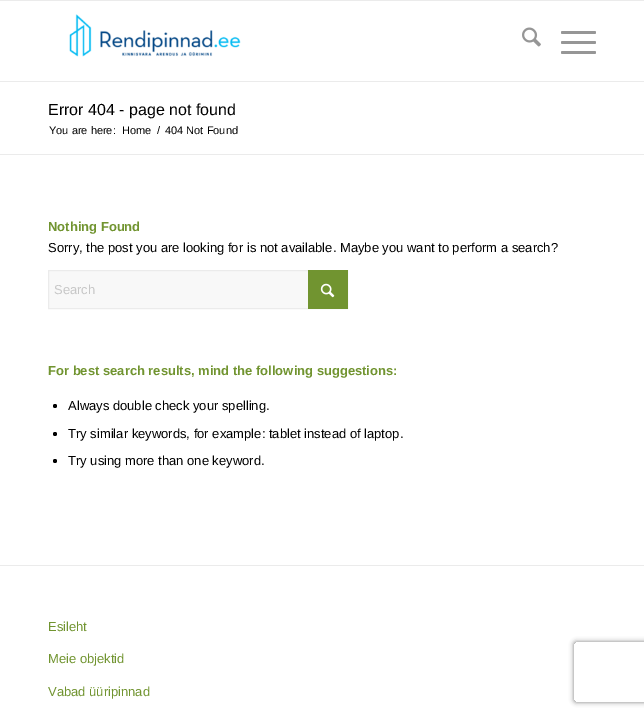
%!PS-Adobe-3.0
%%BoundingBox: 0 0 644 716
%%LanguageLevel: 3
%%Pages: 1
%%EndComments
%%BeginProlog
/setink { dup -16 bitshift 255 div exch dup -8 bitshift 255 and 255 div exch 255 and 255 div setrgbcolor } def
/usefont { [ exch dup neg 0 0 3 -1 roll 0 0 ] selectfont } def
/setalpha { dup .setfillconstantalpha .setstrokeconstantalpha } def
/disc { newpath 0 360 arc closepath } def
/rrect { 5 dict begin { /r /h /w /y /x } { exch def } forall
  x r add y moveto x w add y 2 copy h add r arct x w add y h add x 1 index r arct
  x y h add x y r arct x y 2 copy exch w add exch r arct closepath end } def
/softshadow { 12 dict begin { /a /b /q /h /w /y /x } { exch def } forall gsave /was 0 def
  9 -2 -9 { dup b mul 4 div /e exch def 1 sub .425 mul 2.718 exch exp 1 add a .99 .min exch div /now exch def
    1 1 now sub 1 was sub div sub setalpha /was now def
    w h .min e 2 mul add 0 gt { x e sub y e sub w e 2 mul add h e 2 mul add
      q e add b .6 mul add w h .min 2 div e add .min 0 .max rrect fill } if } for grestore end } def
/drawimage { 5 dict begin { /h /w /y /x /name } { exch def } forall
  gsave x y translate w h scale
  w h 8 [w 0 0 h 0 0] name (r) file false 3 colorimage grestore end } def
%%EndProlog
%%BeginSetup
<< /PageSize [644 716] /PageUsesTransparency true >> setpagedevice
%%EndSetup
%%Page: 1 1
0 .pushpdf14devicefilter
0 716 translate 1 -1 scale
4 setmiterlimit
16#FFFFFF setink
0 0 644 716 rectfill
16#EBEBEB setink
0 0 644 1 rectfill
0 81 644 1 rectfill
(img1.raw) 69 14 172 43 drawimage
(img2.raw) 522 27 19 20 drawimage
16#969696 setink
561 41 35 3 1.5 rrect fill
561 31 35 3 1.5 rrect fill
561 51 35 3 1.5 rrect fill
/LiberationSans-Regular 16 usefont
16#000000 setink
48 115 moveto (Error 404 - page not found) show
/LiberationSans-Regular 11 usefont
[
    [(You are here:) 49 134]
    [(Home) 122 134]
    [(/) 157 134]
    [(404 Not Found) 165 134]
] { aload pop moveto show } forall
16#EBEBEB setink
0 154 644 1 rectfill
/LiberationSans-Bold 13 usefont
16#719430 setink
48 231 moveto (Nothing Found) show
/LiberationSans-Regular 13 usefont
16#000000 setink
48 252 moveto (Sorry, the post you are looking for is not available. Maybe you want to perform a search?) show
16#F8F8F8 setink
49 271 259 37 rectfill
16#EBEBEB setink
48.5 270.5 299 38 rectstroke
16#719430 setink
308 270 40 39 rectfill
16#C7C7C7 setink
54 294 moveto (Search) show
(img3.raw) 320 283 15 15 drawimage
/LiberationSans-Bold 13 usefont
16#719430 setink
48 375 moveto (For best search results, mind the following suggestions:) show
16#000000 setink
55 406 2 disc fill
/LiberationSans-Regular 13 usefont
68 410 moveto (Always double check your spelling.) show
55 434 2 disc fill
68 438 moveto (Try similar keywords, for example: tablet instead of laptop.) show
55 461 2 disc fill
68 465 moveto (Try using more than one keyword.) show
16#EBEBEB setink
0 565 644 1 rectfill
16#719430 setink
[
    [(Esileht) 48 631]
    [(Meie objektid) 48 663]
    [(Vabad üüripinnad) 48 696]
] { aload pop moveto show } forall
gsave
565 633 moveto 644 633 lineto 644 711 lineto 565 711 lineto closepath 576 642 moveto 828 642 lineto 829 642 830 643 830 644 curveto 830 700 lineto 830 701 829 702 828 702 curveto 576 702 lineto 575 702 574 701 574 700 curveto 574 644 lineto 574 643 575 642 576 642 curveto closepath eoclip newpath
16#808080 setink
574 642 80 60 2 2.5 1 softshadow
grestore
.poppdf14devicefilter showpage
%%EOF
